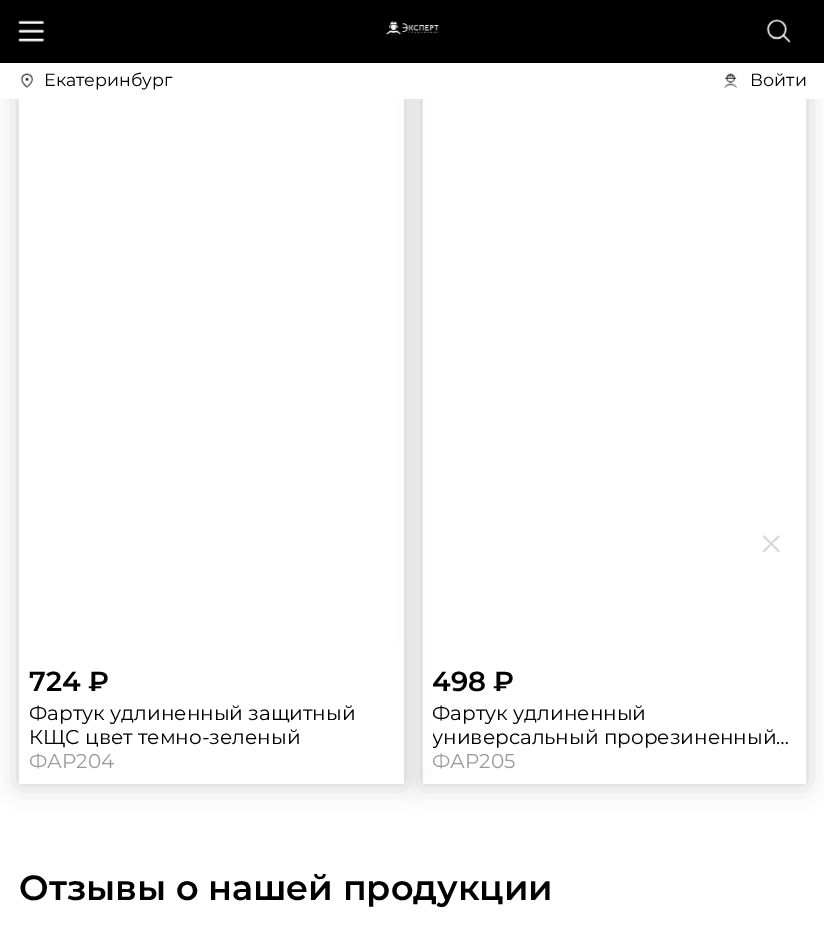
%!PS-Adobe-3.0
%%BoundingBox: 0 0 824 926
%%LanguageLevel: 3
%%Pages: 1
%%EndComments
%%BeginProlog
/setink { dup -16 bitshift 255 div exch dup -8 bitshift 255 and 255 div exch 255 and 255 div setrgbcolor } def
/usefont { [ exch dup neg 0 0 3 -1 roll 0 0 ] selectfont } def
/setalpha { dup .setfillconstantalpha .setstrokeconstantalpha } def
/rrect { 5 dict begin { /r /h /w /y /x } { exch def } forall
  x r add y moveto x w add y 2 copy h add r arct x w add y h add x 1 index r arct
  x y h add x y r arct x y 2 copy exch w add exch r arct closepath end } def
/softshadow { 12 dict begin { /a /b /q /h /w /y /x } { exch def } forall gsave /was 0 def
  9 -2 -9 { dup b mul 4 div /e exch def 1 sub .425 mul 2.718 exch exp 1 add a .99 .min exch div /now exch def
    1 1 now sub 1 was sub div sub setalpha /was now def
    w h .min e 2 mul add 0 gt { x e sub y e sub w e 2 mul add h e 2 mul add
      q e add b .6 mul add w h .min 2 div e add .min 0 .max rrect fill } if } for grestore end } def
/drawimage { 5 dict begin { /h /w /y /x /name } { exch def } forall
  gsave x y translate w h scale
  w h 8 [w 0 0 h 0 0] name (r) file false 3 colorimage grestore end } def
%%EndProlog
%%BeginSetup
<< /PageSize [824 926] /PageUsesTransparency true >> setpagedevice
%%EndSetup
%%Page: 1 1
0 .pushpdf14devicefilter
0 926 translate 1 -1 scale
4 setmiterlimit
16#FFFFFF setink
0 0 824 926 rectfill
gsave
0 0 moveto 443 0 lineto 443 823 lineto 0 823 lineto closepath 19 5 moveto 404 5 lineto 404 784 lineto 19 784 lineto closepath eoclip newpath
16#000000 setink
19 5 385 779 0 12.5 0.2 softshadow
grestore
423 99 2 672 rectfill
gsave
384 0 moveto 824 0 lineto 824 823 lineto 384 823 lineto closepath 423 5 moveto 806 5 lineto 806 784 lineto 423 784 lineto closepath eoclip newpath
16#000000 setink
423 5 383 779 0 12.5 0.2 softshadow
grestore
16#000000 setink
0 0 824 63 rectfill
(img1.raw) 18 20 26 22 drawimage
(img2.raw) 386 21 53 14 drawimage
(img3.raw) 766 19 25 24 drawimage
16#FFFFFF setink
0 63 824 36 rectfill
(img4.raw) 20 73 13 15 drawimage
/Montserrat-Regular 17.5 usefont
16#000000 setink
44 86 moveto (Екатеринбург) show
(img5.raw) 723 73 14 15 drawimage
750 86 moveto (Войти) show
(img6.raw) 762 535 18 18 drawimage
0.85 setalpha
16#FFFFFF setink
19 643 385 141 rectfill
/Montserrat-SemiBold 27.5 usefont
1 setalpha
16#000000 setink
29 691 moveto (724 ₽) show
/Montserrat-Regular 20 usefont
29 720 moveto (Фартук удлиненный защитный) show
29 744 moveto (КЩС цвет темно-зеленый) show
16#999999 setink
29 768 moveto (ФАР204) show
0.85 setalpha
16#FFFFFF setink
423 783 383 1 rectfill
/Montserrat-SemiBold 27.5 usefont
1 setalpha
16#000000 setink
432 691 moveto (498 ₽) show
/Montserrat-Regular 20 usefont
432 720 moveto (Фартук удлиненный) show
gsave
433 700 363 48 rectclip
432 744 moveto (универсальный прорезиненный…) show
grestore
16#999999 setink
432 768 moveto (ФАР205) show
/Montserrat-SemiBold 35 usefont
16#000000 setink
19 900 moveto (Отзывы о нашей продукции) show
.poppdf14devicefilter showpage
%%EOF
